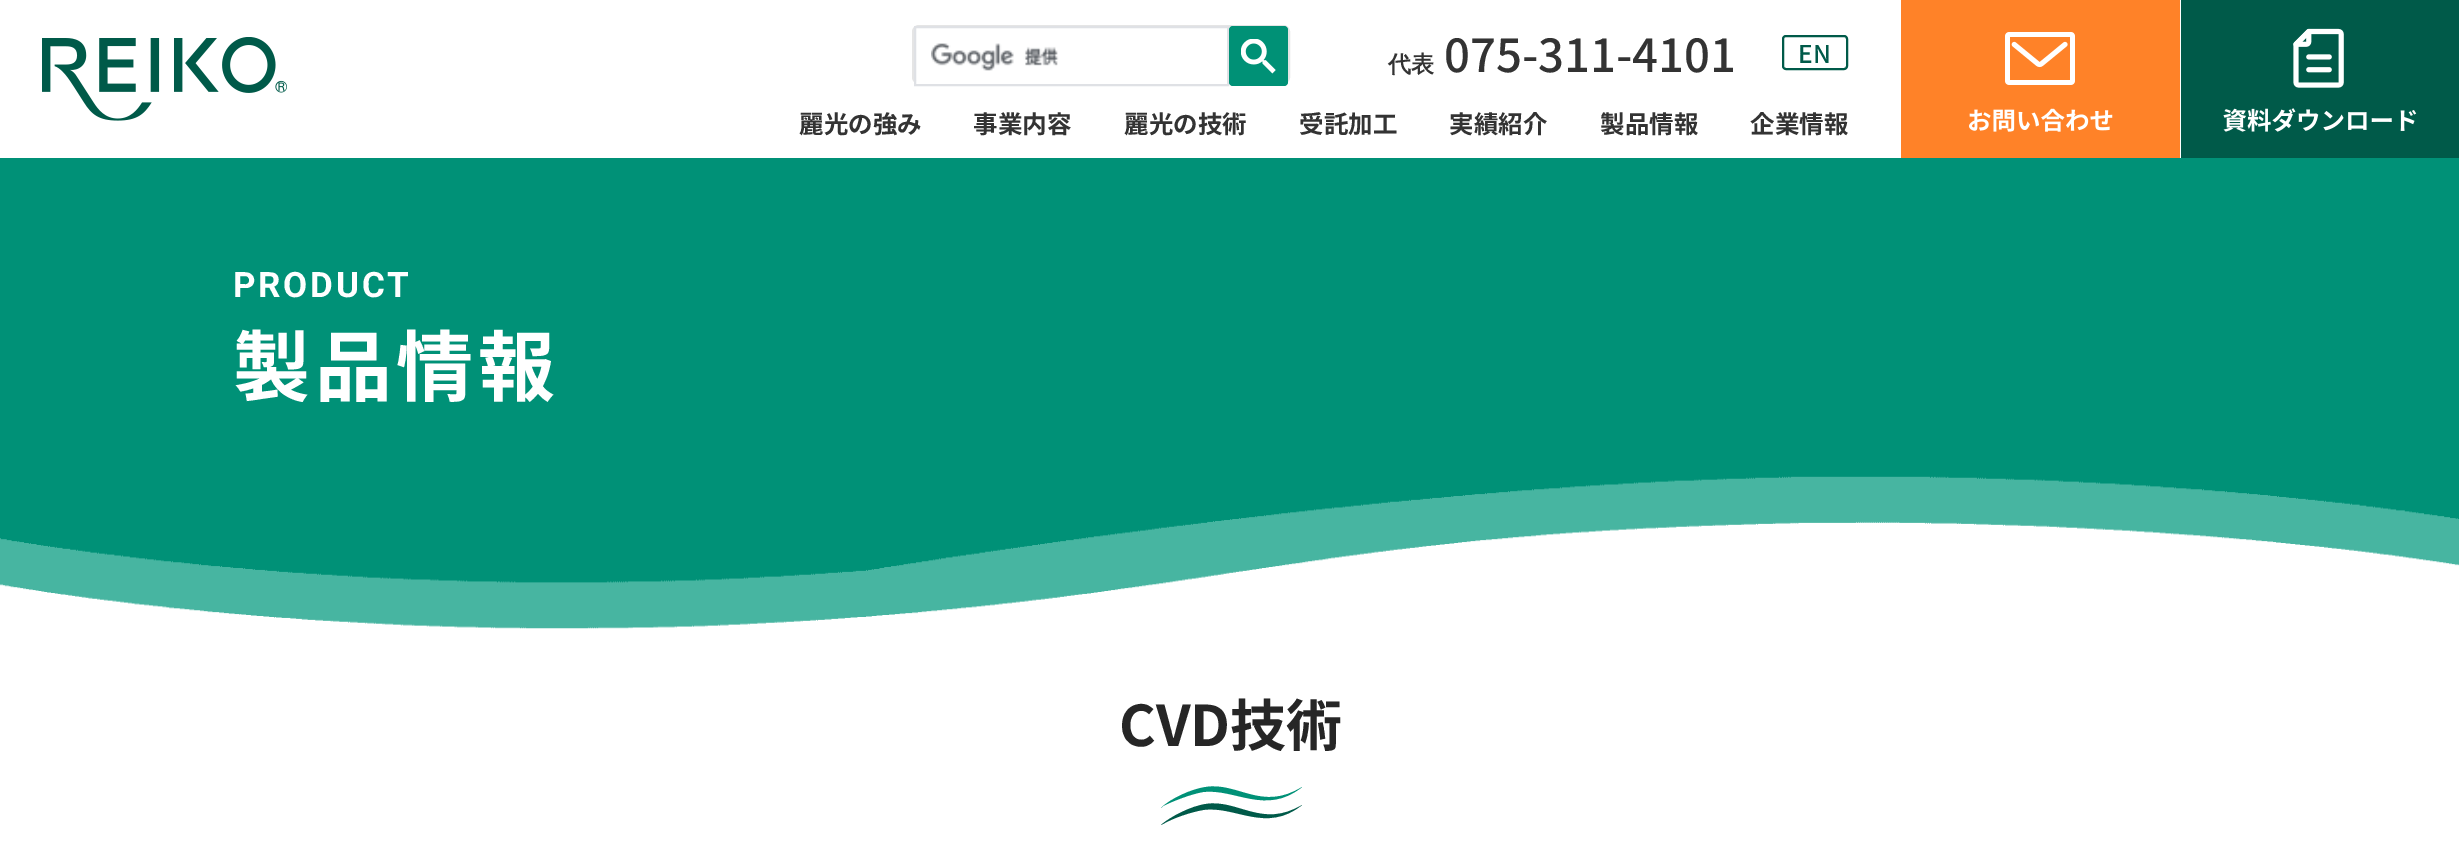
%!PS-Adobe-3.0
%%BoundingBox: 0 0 2459 848
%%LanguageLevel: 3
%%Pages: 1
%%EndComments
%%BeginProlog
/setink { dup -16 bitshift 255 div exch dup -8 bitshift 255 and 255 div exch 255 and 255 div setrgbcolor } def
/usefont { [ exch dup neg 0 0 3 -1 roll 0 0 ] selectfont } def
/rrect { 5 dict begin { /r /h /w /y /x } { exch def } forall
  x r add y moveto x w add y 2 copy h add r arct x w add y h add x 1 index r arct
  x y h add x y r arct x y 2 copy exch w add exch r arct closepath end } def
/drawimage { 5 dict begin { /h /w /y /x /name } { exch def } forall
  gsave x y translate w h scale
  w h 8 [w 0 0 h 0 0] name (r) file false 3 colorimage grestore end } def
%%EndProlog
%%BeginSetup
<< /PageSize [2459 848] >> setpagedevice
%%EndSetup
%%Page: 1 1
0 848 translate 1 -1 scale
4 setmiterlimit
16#FFFFFF setink
0 0 2459 848 rectfill
(img1.raw) 42 37 245 84 drawimage
16#E5E5E5 setink
2 setlinewidth
913 26 376 57 6 rrect stroke
16#FFFFFF setink
916 81 311 3 rectfill
16#DFE1E5 setink
915 27 313 58 rectstroke
(img2.raw) 931 43 128 28 drawimage
16#009176 setink
1229 26 59 60 4 rrect fill
(img3.raw) 1241 39 35 35 drawimage
/WenQuanYiZenHei-Bold 23 usefont
16#333333 setink
1388 72 moveto (代表) show
/NotoSansJP-Medium 45.5 usefont
1444 72 moveto (075-311-4101) show
16#005A49 setink
1783 36 64 33 3 rrect stroke
/NotoSansJP-Medium 24.5 usefont
1798 63 moveto (EN) show
/NotoSansJP-Bold 24.5 usefont
16#333333 setink
[
    [(麗光の強み) 799 133]
    [(事業内容) 973 133]
    [(麗光の技術) 1124 133]
    [(受託加工) 1299 133]
    [(実績紹介) 1449 133]
    [(製品情報) 1600 133]
    [(企業情報) 1750 133]
] { aload pop moveto show } forall
(img4.raw) 1901 0 279 158 drawimage
(img5.raw) 2181 0 278 158 drawimage
(img6.raw) 0 158 2459 471 drawimage
/Roboto-Bold 35 usefont
16#FFFFFF setink
233 297 moveto 2.75 0 (PRODUCT) ashow
/NotoSansJP-Bold 77 usefont
233 395 moveto 4.5 0 (製品情報) ashow
16#005A49 setink
1206 804 moveto 1191 806 1170 817 1161 825 curveto 1163 824 lineto 1173 818 1191 812 1203 810 curveto 1235 805 1266 834 1302 805 curveto 1262 829 1238 799 1206 804 curveto closepath fill
16#009177 setink
1206 787 moveto 1191 789 1170 799 1161 808 curveto 1163 806 lineto 1173 801 1191 794 1203 792 curveto 1235 788 1266 816 1302 787 curveto 1262 812 1238 782 1206 787 curveto closepath fill
/NotoSansJP-Bold 56 usefont
16#262626 setink
1119 746 moveto (CVD技術) show
showpage
%%EOF
